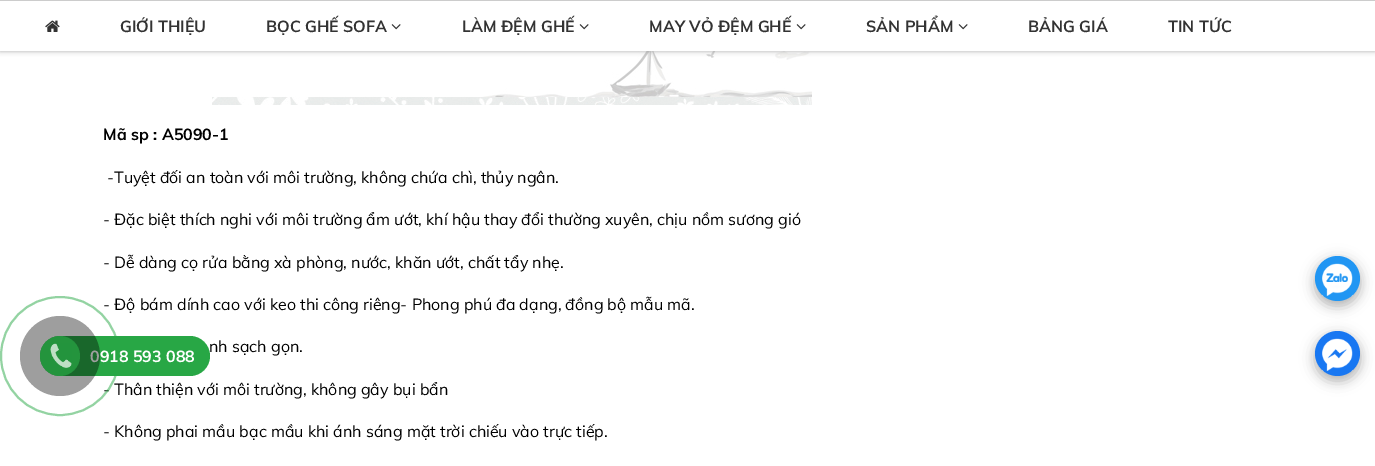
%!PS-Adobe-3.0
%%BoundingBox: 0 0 1375 466
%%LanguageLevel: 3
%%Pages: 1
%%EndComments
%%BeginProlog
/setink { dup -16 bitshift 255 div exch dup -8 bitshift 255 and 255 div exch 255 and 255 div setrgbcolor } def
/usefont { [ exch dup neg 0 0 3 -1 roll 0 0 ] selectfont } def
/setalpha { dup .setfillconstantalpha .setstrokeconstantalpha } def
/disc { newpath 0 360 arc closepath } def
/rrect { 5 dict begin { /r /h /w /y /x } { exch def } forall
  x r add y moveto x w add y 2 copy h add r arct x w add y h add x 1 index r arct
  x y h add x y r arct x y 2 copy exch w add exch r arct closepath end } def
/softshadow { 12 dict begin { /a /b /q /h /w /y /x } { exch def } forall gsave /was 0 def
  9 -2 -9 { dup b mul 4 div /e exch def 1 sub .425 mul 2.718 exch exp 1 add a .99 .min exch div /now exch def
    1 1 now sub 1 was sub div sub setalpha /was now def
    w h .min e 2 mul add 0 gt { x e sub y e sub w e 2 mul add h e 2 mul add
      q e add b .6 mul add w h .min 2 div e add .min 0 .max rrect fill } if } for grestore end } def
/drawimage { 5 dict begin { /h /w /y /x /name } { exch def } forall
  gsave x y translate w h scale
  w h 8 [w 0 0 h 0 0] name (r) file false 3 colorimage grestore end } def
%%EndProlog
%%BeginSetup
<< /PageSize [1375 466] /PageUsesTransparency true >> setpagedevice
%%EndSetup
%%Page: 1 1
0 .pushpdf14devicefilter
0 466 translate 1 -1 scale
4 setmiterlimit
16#FFFFFF setink
0 0 1375 466 rectfill
(img3.raw) 212 51 600 54 drawimage
16#919191 setink
0 0 1375 51 0 2.5 0.75 softshadow
16#FFFFFF setink
0 1 1375 50 rectfill
16#CCCCCC setink
0 0 1375 1 rectfill
(img1.raw) 45 20 15 12 drawimage
/Muli-Bold 16 usefont
16#333333 setink
120 32 moveto (GIỚI THIỆU) show
266 32 moveto (BỌC GHẾ SOFA) show
(img2.raw) 391 24 10 6 drawimage
462 32 moveto (LÀM ĐỆM GHẾ) show
(img2.raw) 579 24 10 6 drawimage
649 32 moveto (MAY VỎ ĐỆM GHẾ) show
(img2.raw) 796 24 10 6 drawimage
866 32 moveto (SẢN PHẨM) show
(img2.raw) 958 24 10 6 drawimage
1028 32 moveto (BẢNG GIÁ) show
1168 32 moveto (TIN TỨC) show
16#000000 setink
103 140 moveto (Mã sp : A5090-1) show
/Muli-Regular 16 usefont
[
    [(-Tuyệt đối an toàn với môi trường, không chứa chì, thủy ngân.) 107 183]
    [(- Đặc biệt thích nghi với môi trường ẩm ướt, khí hậu thay đổi thường xuyên, chịu nồm sương gió) 103 225]
    [(- Dễ dàng cọ rửa bằng xà phòng, nước, khăn ướt, chất tẩy nhẹ.) 103 268]
    [(- Độ bám dính cao với keo thi công riêng- Phong phú đa dạng, đồng bộ mẫu mã.) 103 310]
    [(nh sạch gọn.) 209 352]
    [(- Thân thiện với môi trường, không gây bụi bẩn) 103 395]
    [(- Không phai mầu bạc mầu khi ánh sáng mặt trời chiếu vào trực tiếp.) 103 437]
] { aload pop moveto show } forall
16#28A745 setink
40 336 170 40 20 rrect fill
/Muli-Bold 16 usefont
16#FFFFFF setink
90 362 moveto (0918 593 088) show
0.5 setalpha
16#28A745 setink
2 setlinewidth
60 356 59 disc stroke
0.38 setalpha
16#000000 setink
60 356 40 disc fill
0.7 setalpha
16#28A745 setink
60 356 20 disc fill
1 setalpha
(img4.raw) 50 343 22 25 drawimage
16#000000 setink
1315 260 45 45 22.5 7.5 0.15 softshadow
1315 261 45 45 22.5 5.5 0.18 softshadow
16#2196F3 setink
1337.5 278.5 22.5 disc fill
(img5.raw) 1322 263 31 33 drawimage
16#000000 setink
1315 335 45 45 22.5 7.5 0.15 softshadow
1315 336 45 45 22.5 5.5 0.18 softshadow
16#1877F2 setink
1337.5 353.5 22.5 disc fill
(img6.raw) 1322 338 31 33 drawimage
.poppdf14devicefilter showpage
%%EOF
